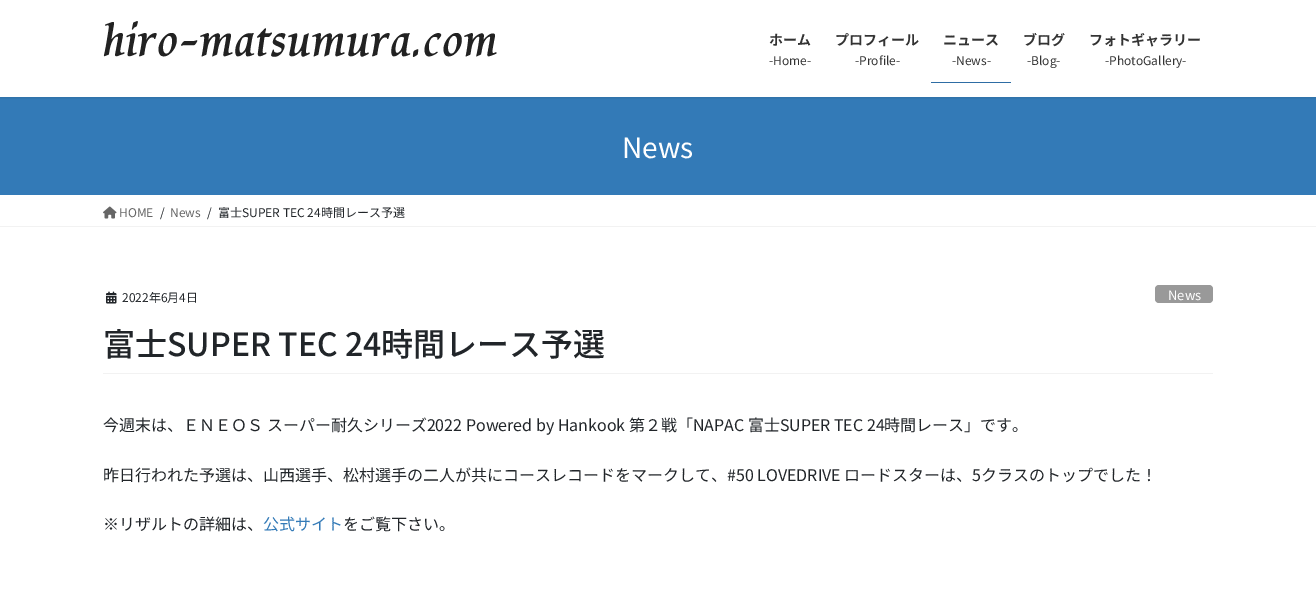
%!PS-Adobe-3.0
%%BoundingBox: 0 0 1316 614
%%LanguageLevel: 3
%%Pages: 1
%%EndComments
%%BeginProlog
/setink { dup -16 bitshift 255 div exch dup -8 bitshift 255 and 255 div exch 255 and 255 div setrgbcolor } def
/usefont { [ exch dup neg 0 0 3 -1 roll 0 0 ] selectfont } def
/setalpha { dup .setfillconstantalpha .setstrokeconstantalpha } def
/rrect { 5 dict begin { /r /h /w /y /x } { exch def } forall
  x r add y moveto x w add y 2 copy h add r arct x w add y h add x 1 index r arct
  x y h add x y r arct x y 2 copy exch w add exch r arct closepath end } def
/softshadow { 12 dict begin { /a /b /q /h /w /y /x } { exch def } forall gsave /was 0 def
  9 -2 -9 { dup b mul 4 div /e exch def 1 sub .425 mul 2.718 exch exp 1 add a .99 .min exch div /now exch def
    1 1 now sub 1 was sub div sub setalpha /was now def
    w h .min e 2 mul add 0 gt { x e sub y e sub w e 2 mul add h e 2 mul add
      q e add b .6 mul add w h .min 2 div e add .min 0 .max rrect fill } if } for grestore end } def
/drawimage { 5 dict begin { /h /w /y /x /name } { exch def } forall
  gsave x y translate w h scale
  w h 8 [w 0 0 h 0 0] name (r) file false 3 colorimage grestore end } def
%%EndProlog
%%BeginSetup
<< /PageSize [1316 614] /PageUsesTransparency true >> setpagedevice
%%EndSetup
%%Page: 1 1
0 .pushpdf14devicefilter
0 614 translate 1 -1 scale
4 setmiterlimit
16#FFFFFF setink
0 0 1316 614 rectfill
16#337AB7 setink
0 97 1316 98 rectfill
gsave
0 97 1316 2 rectclip
16#000000 setink
0 1 1316 97 0 1.5 0.1 softshadow
grestore
(img1.raw) 103 21 394 36 drawimage
/NotoSansJP-Bold 14 usefont
16#333333 setink
769 45 moveto (ホーム) show
/NotoSansJP-Regular 12 usefont
769 65 moveto (-Home-) show
/NotoSansJP-Bold 14 usefont
835 45 moveto (プロフィール) show
/NotoSansJP-Regular 12 usefont
855 65 moveto (-Profile-) show
/NotoSansJP-Bold 14 usefont
943 45 moveto (ニュース) show
/NotoSansJP-Regular 12 usefont
952 65 moveto (-News-) show
16#2E6DA4 setink
931 82 80 1 rectfill
/NotoSansJP-Bold 14 usefont
16#333333 setink
1023 45 moveto (ブログ) show
/NotoSansJP-Regular 12 usefont
1027 65 moveto (-Blog-) show
/NotoSansJP-Bold 14 usefont
1089 45 moveto (フォトギャラリー) show
/NotoSansJP-Regular 12 usefont
1105 65 moveto (-PhotoGallery-) show
/NotoSansJP-Regular 28 usefont
16#FFFFFF setink
622 158 moveto (News) show
16#F2F2F2 setink
0 226 1316 1 rectfill
(img2.raw) 103 206 14 13 drawimage
/NotoSansJP-Regular 12 usefont
16#666666 setink
119 217 moveto (HOME) show
16#212529 setink
160 217 moveto (/) show
16#666666 setink
170 217 moveto (News) show
16#212529 setink
207 217 moveto (/) show
218 217 moveto (富士SUPER TEC 24時間レース予選) show
16#F2F2F2 setink
103 373 1110 1 rectfill
(img3.raw) 106 291 11 13 drawimage
16#212529 setink
122 302 moveto (2022年6月4日) show
16#999999 setink
1155 285 58 18 4 rrect fill
/NotoSansJP-Regular 13 usefont
16#FFFFFF setink
1168 300 moveto (News) show
/NotoSansJP-Medium 32 usefont
16#212529 setink
103 356 moveto (富士SUPER TEC 24時間レース予選) show
/NotoSansJP-Regular 16 usefont
[
    [(今週末は、ＥＮＥＯＳ スーパー耐久シリーズ2022 Powered by Hankook 第２戦「NAPAC 富士SUPER TEC 24時間レース」です。) 103 431]
    [(昨日行われた予選は、山西選手、松村選手の二人が共にコースレコードをマークして、#50 LOVEDRIVE ロードスターは、5クラスのトップでした！) 103 481]
    [(※リザルトの詳細は、) 103 530]
] { aload pop moveto show } forall
16#337AB7 setink
263 530 moveto (公式サイト) show
16#212529 setink
343 530 moveto (をご覧下さい。) show
.poppdf14devicefilter showpage
%%EOF
